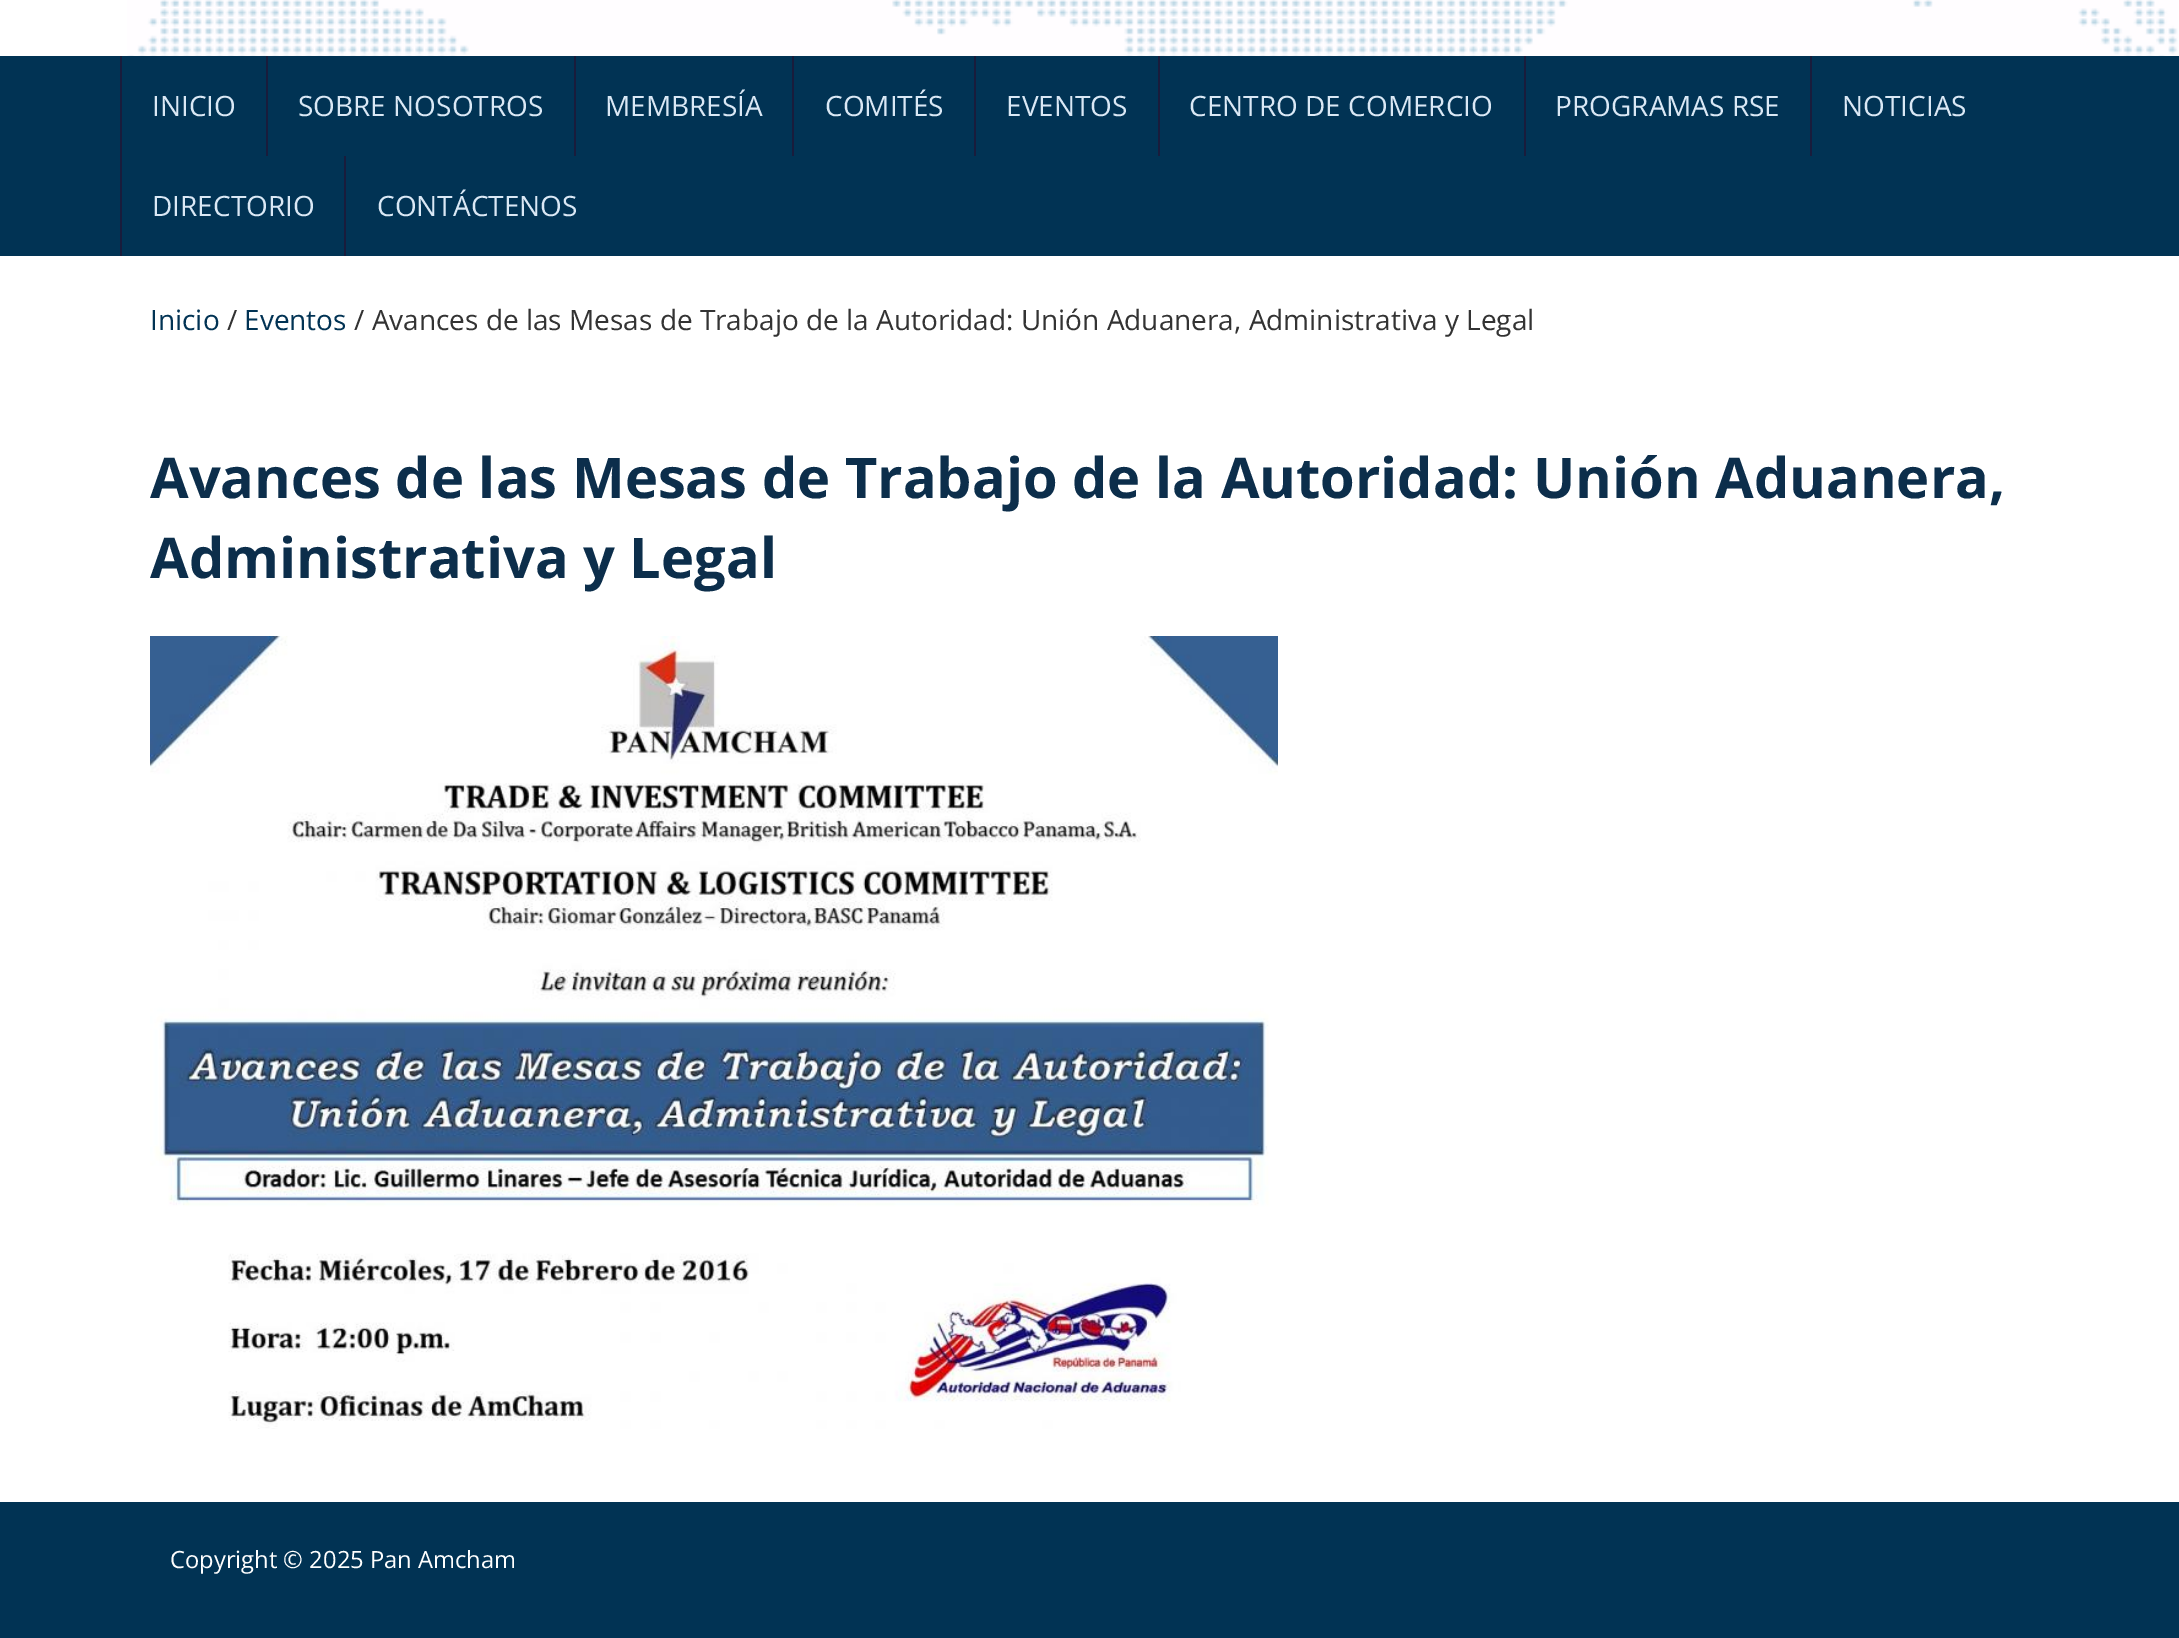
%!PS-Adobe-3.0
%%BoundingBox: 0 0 2179 1638
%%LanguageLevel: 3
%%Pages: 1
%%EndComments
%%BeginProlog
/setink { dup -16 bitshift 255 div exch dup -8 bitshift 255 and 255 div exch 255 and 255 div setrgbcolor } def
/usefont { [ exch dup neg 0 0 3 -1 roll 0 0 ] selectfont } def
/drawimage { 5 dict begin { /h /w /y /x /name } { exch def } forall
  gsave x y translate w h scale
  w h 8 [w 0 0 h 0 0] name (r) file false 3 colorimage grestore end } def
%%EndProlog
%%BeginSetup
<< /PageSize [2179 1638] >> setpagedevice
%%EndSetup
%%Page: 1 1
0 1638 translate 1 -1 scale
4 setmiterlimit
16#FFFFFF setink
0 0 2179 1638 rectfill
(img1.raw) 127 0 2051 56 drawimage
16#013354 setink
0 56 2179 200 rectfill
16#191C3C setink
120 56 2 200 rectfill
/OpenSans-Regular 28 usefont
16#DAE8F5 setink
152 116 moveto (INICIO) show
16#191C3C setink
266 56 2 100 rectfill
16#DAE8F5 setink
298 116 moveto (SOBRE NOSOTROS) show
16#191C3C setink
574 56 2 100 rectfill
16#DAE8F5 setink
605 116 moveto (MEMBRESÍA) show
16#191C3C setink
792 56 2 100 rectfill
16#DAE8F5 setink
825 116 moveto (COMITÉS) show
16#191C3C setink
974 56 2 100 rectfill
16#DAE8F5 setink
1006 116 moveto (EVENTOS) show
16#191C3C setink
1158 56 2 100 rectfill
16#DAE8F5 setink
1189 116 moveto (CENTRO DE COMERCIO) show
16#191C3C setink
1524 56 2 100 rectfill
16#DAE8F5 setink
1555 116 moveto (PROGRAMAS RSE) show
16#191C3C setink
1810 56 2 100 rectfill
16#DAE8F5 setink
1842 116 moveto (NOTICIAS) show
152 216 moveto (DIRECTORIO) show
16#191C3C setink
344 156 2 100 rectfill
16#DAE8F5 setink
377 216 moveto (CONTÁCTENOS) show
16#013354 setink
150 330 moveto (Inicio) show
16#333333 setink
227 330 moveto (/) show
16#013354 setink
244 330 moveto (Eventos) show
16#333333 setink
354 330 moveto (/ Avances de las Mesas de Trabajo de la Autoridad: Unión Aduanera, Administrativa y Legal) show
/OpenSans-Bold 56 usefont
16#0C2E4B setink
150 498 moveto (Avances de las Mesas de Trabajo de la Autoridad: Unión Aduanera,) show
150 578 moveto (Administrativa y Legal) show
(img2.raw) 150 636 1128 793 drawimage
16#013354 setink
0 1502 2179 136 rectfill
/OpenSans-Regular 23.75 usefont
16#FFFFFF setink
170 1568 moveto (Copyright © 2025 Pan Amcham) show
showpage
%%EOF
